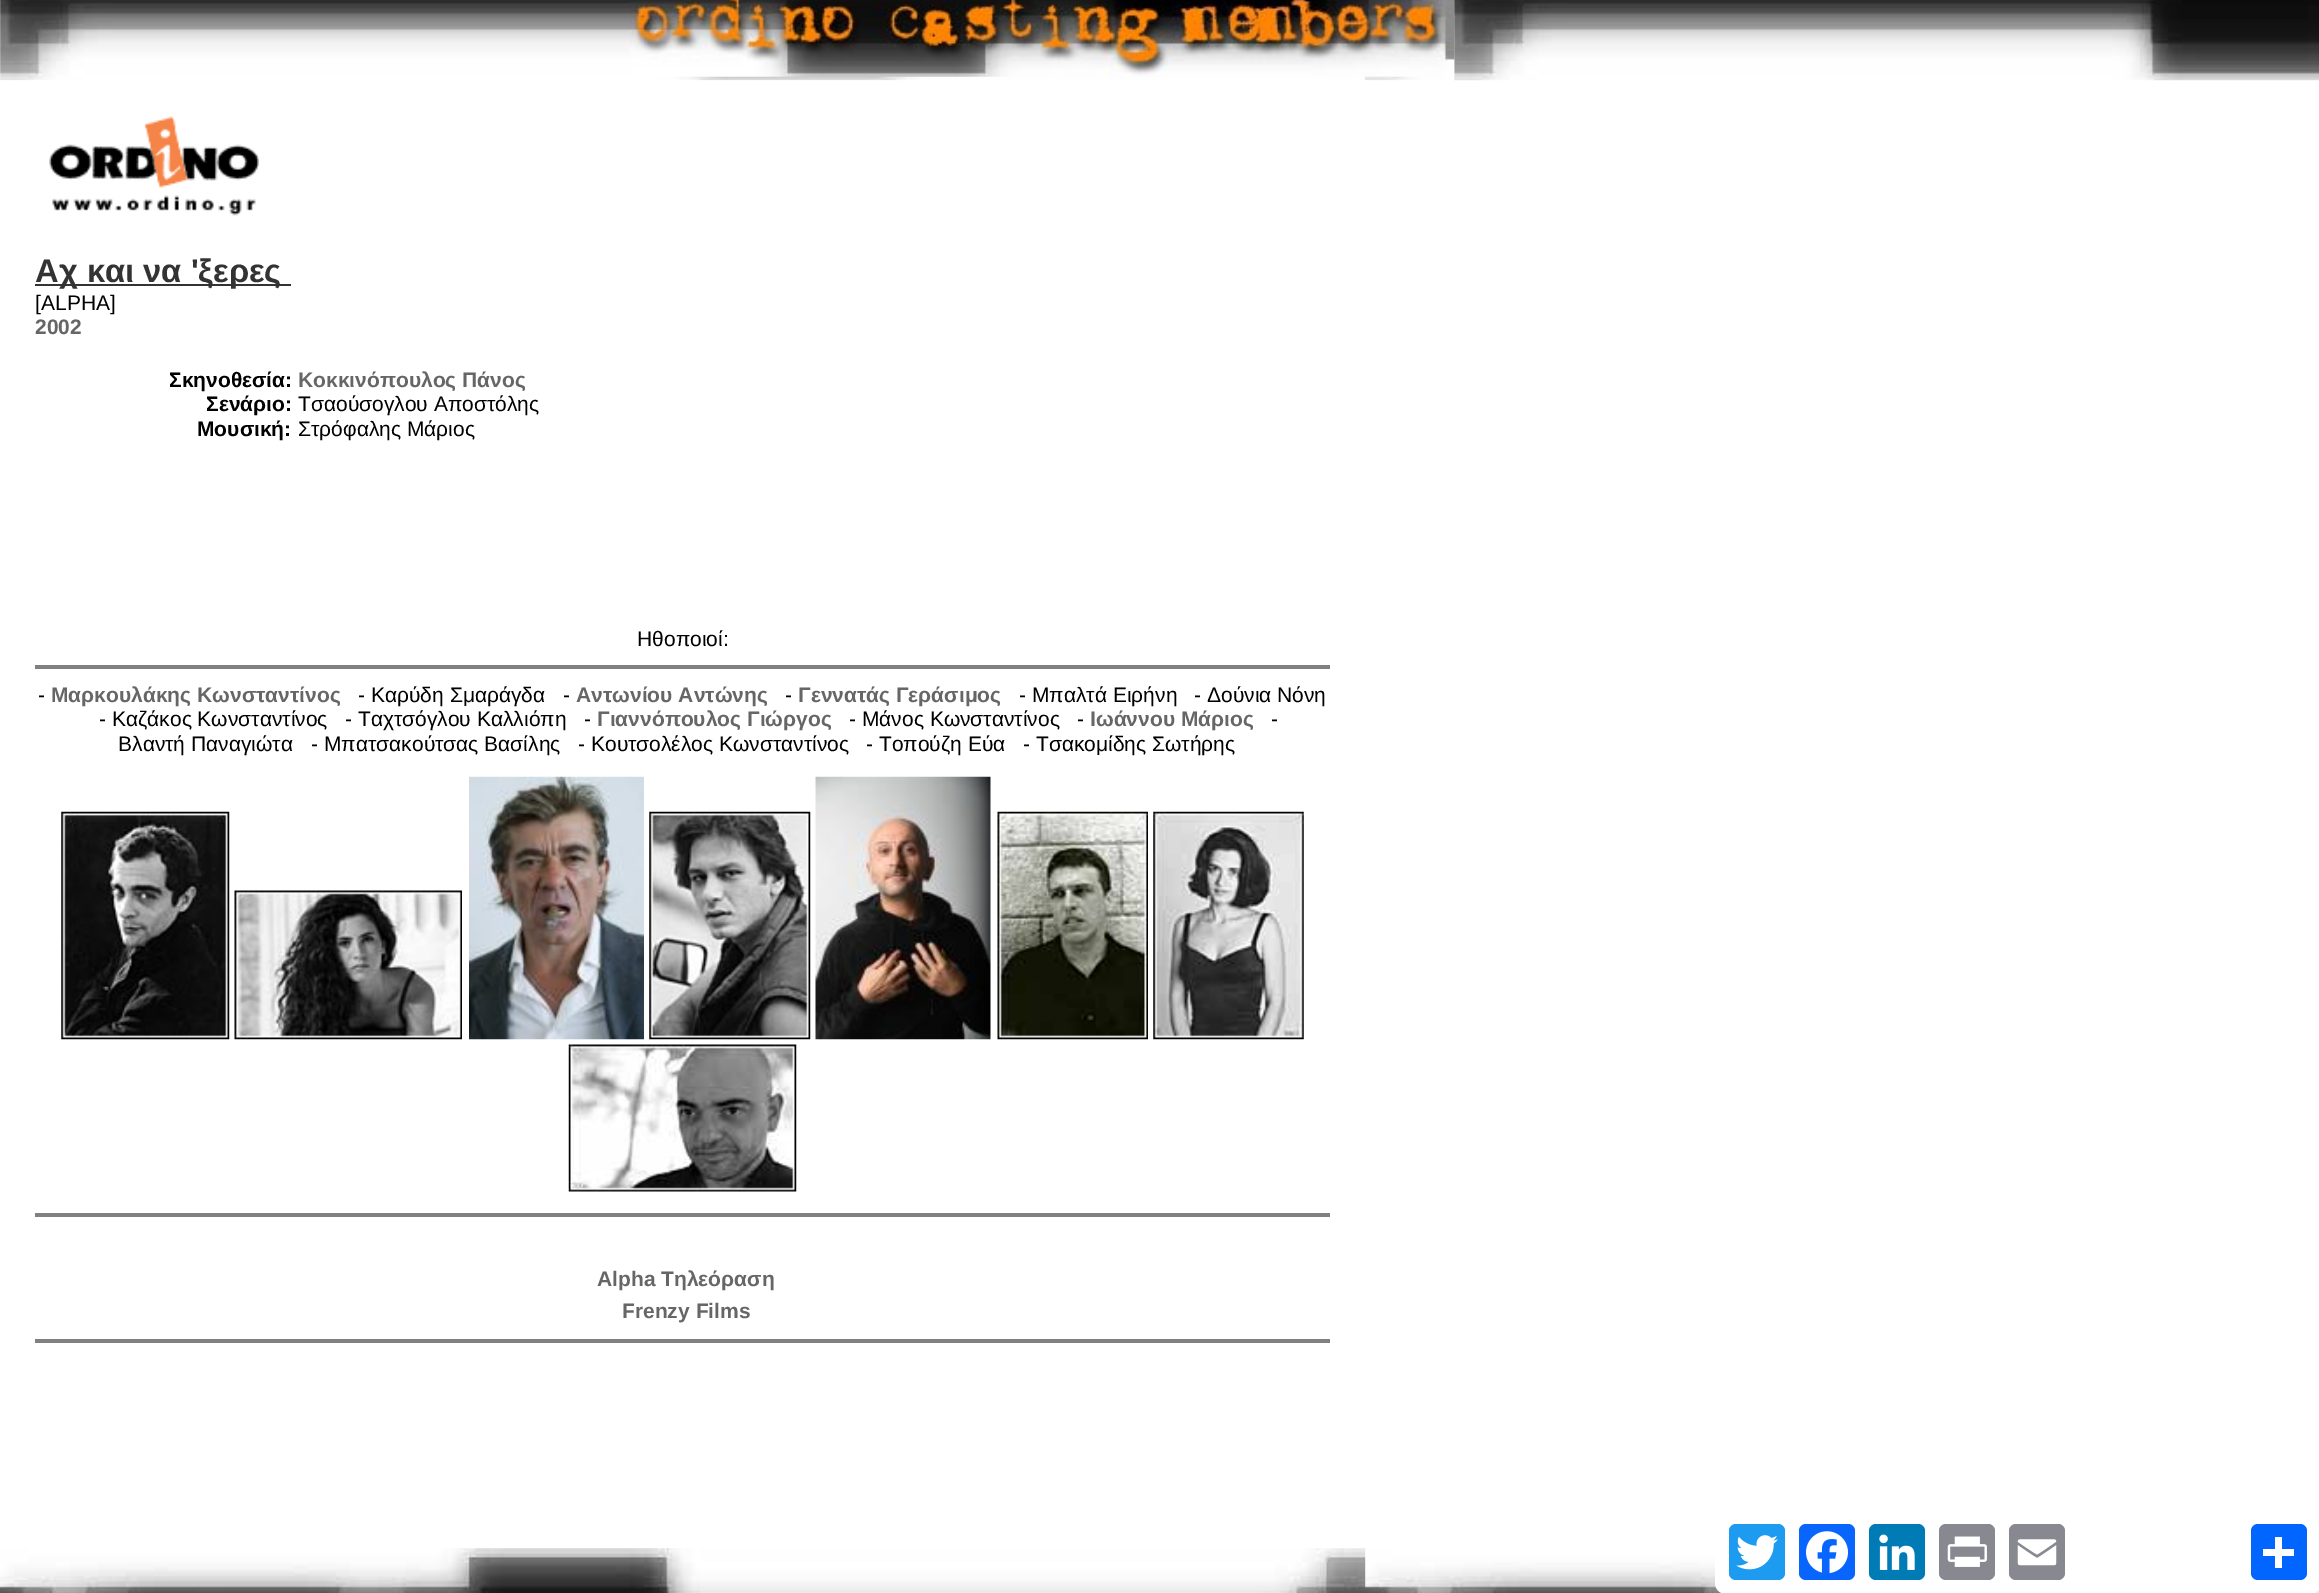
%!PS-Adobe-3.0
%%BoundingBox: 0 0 2319 1593
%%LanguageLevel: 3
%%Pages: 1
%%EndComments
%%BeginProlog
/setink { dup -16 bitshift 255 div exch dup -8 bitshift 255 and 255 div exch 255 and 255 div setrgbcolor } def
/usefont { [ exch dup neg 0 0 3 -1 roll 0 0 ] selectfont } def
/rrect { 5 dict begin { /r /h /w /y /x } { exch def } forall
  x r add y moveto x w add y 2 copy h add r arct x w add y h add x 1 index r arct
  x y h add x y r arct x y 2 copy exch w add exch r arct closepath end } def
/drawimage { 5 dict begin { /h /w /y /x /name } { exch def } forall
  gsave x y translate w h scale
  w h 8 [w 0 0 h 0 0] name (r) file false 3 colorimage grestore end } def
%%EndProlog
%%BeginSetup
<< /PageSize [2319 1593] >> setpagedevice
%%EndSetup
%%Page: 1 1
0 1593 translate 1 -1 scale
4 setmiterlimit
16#FFFFFF setink
0 0 2319 1593 rectfill
(img1.raw) 0 0 1455 81 drawimage
(img2.raw) 630 0 240 77 drawimage
(img3.raw) 870 0 301 77 drawimage
(img5.raw) 1454 0 865 81 drawimage
(img4.raw) 1170 0 285 77 drawimage
(img6.raw) 49 116 210 100 drawimage
16#333333 setink
35 284 256 2 rectfill
/LiberationSans-Bold 32.75 usefont
35 282 moveto (Αχ και να 'ξερες) show
/LiberationSans-Regular 21 usefont
16#000000 setink
35 310 moveto ([ALPHA]) show
/LiberationSans-Bold 21 usefont
16#666666 setink
35 334 moveto (2002) show
16#000000 setink
169 387 moveto (Σκηνοθεσία:) show
16#666666 setink
298 387 moveto (Κοκκινόπουλος Πάνος) show
16#000000 setink
206 411 moveto (Σενάριο:) show
/LiberationSans-Regular 21 usefont
298 411 moveto (Τσαούσογλου Αποστόλης) show
/LiberationSans-Bold 21 usefont
197 436 moveto (Μουσική:) show
/LiberationSans-Regular 21 usefont
298 436 moveto (Στρόφαλης Μάριος) show
637 646 moveto (Hθοποιοί:) show
16#808080 setink
35 665 1295 4 rectfill
16#000000 setink
38 702 moveto (-) show
/LiberationSans-Bold 21 usefont
16#666666 setink
51 702 moveto (Μαρκουλάκης Κωνσταντίνος) show
/LiberationSans-Regular 21 usefont
16#000000 setink
358 702 moveto (- Καρύδη Σμαράγδα) show
563 702 moveto (-) show
/LiberationSans-Bold 21 usefont
16#666666 setink
576 702 moveto (Αντωνίου Αντώνης) show
/LiberationSans-Regular 21 usefont
16#000000 setink
785 702 moveto (-) show
/LiberationSans-Bold 21 usefont
16#666666 setink
798 702 moveto (Γεννατάς Γεράσιμος) show
/LiberationSans-Regular 21 usefont
16#000000 setink
[
    [(- Μπαλτά Ειρήνη) 1019 702]
    [(- Δούνια Νόνη) 1194 702]
    [(- Καζάκος Κωνσταντίνος) 99 726]
    [(- Ταχτσόγλου Καλλιόπη) 345 726]
    [(-) 584 726]
] { aload pop moveto show } forall
/LiberationSans-Bold 21 usefont
16#666666 setink
597 726 moveto (Γιαννόπουλος Γιώργος) show
/LiberationSans-Regular 21 usefont
16#000000 setink
849 726 moveto (- Μάνος Κωνσταντίνος) show
1077 726 moveto (-) show
/LiberationSans-Bold 21 usefont
16#666666 setink
1090 726 moveto (Ιωάννου Μάριος) show
/LiberationSans-Regular 21 usefont
16#000000 setink
[
    [(-) 1271 726]
    [(Βλαντή Παναγιώτα) 118 751]
    [(- Μπατσακούτσας Βασίλης) 311 751]
    [(- Κουτσολέλος Κωνσταντίνος) 578 751]
    [(- Τοπούζη Εύα) 866 751]
    [(- Τσακομίδης Σωτήρης) 1023 751]
] { aload pop moveto show } forall
(img7.raw) 61 811 169 229 drawimage
(img8.raw) 234 890 228 150 drawimage
(img9.raw) 469 776 175 264 drawimage
(img10.raw) 649 811 162 229 drawimage
(img11.raw) 815 776 176 264 drawimage
(img12.raw) 997 811 151 229 drawimage
(img13.raw) 1153 811 151 229 drawimage
(img14.raw) 568 1044 229 148 drawimage
16#808080 setink
35 1213 1295 4 rectfill
/LiberationSans-Bold 21 usefont
16#666666 setink
597 1286 moveto (Alpha Τηλεόραση) show
622 1318 moveto (Frenzy Films) show
16#808080 setink
35 1339 1295 4 rectfill
(img20.raw) 0 1548 2319 45 drawimage
16#FFFFFF setink
1715 1510 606 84 11 rrect fill
16#1D9BF0 setink
1729 1524 56 56 7 rrect fill
(img15.raw) 1736 1535 42 35 drawimage
16#0866FF setink
1799 1524 56 56 7 rrect fill
(img16.raw) 1806 1531 42 43 drawimage
16#007BB5 setink
1869 1524 56 56 7 rrect fill
(img17.raw) 1879 1534 36 36 drawimage
16#888990 setink
1939 1524 56 56 7 rrect fill
(img18.raw) 1947 1536 40 31 drawimage
2009 1524 56 56 7 rrect fill
(img19.raw) 2017 1539 40 27 drawimage
16#0166FF setink
2251 1524 56 56 7 rrect fill
16#FFFFFF setink
2275 1537 7 31 rectfill
2263 1549 31 7 rectfill
(img21.raw) 0 1548 1365 40 drawimage
showpage
%%EOF
